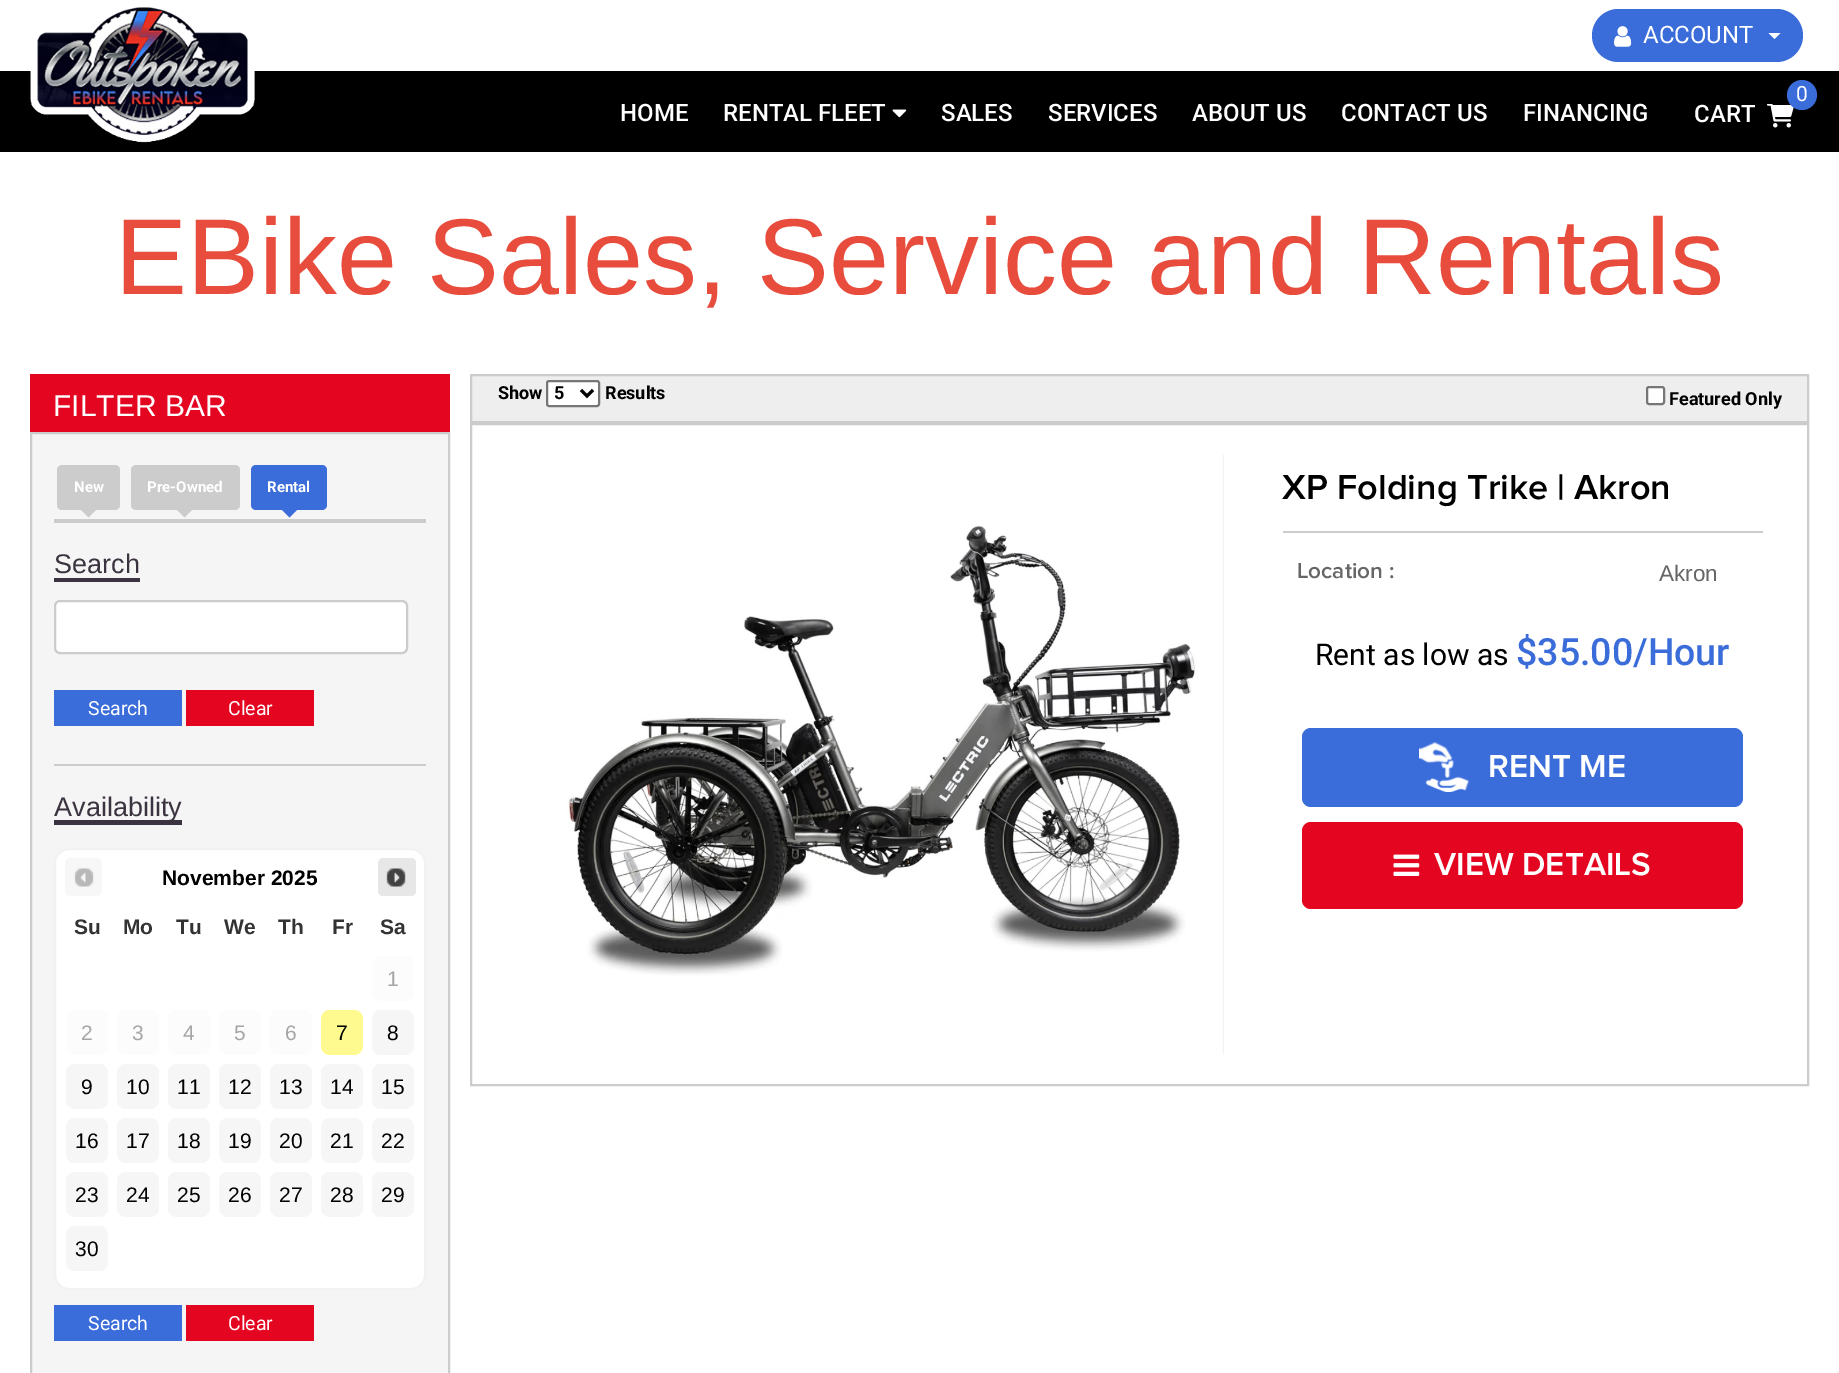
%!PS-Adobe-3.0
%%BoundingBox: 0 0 1839 1373
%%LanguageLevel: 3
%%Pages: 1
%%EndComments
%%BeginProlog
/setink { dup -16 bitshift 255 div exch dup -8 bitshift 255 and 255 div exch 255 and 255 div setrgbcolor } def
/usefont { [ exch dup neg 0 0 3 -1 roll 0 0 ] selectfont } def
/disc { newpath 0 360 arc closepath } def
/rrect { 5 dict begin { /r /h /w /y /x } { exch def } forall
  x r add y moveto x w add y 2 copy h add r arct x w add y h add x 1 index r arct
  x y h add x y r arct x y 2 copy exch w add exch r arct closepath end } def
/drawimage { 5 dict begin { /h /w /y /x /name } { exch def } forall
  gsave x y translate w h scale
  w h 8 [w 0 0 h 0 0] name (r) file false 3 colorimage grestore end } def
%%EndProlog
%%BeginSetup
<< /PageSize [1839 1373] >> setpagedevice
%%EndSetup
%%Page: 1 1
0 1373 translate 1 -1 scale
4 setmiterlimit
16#FFFFFF setink
0 0 1839 1373 rectfill
16#3A6CDA setink
1592 9 211 53 26.5 rrect fill
(img1.raw) 1614 26 18 21 drawimage
/Roboto-Regular 24 usefont
16#FFFFFF setink
1643 43 moveto (ACCOUNT) show
1768.5 33 moveto 1780.5 33 lineto 1774.5 39 lineto closepath fill
16#000000 setink
0 71 1839 81 rectfill
(img2.raw) 30 7 225 136 drawimage
/Roboto-Medium 24 usefont
16#FFFFFF setink
620 121 moveto (HOME) show
723 121 moveto (RENTAL FLEET) show
(img3.raw) 892 109 15 9 drawimage
[
    [(SALES) 941 121]
    [(SERVICES) 1048 121]
    [(ABOUT US) 1192 121]
    [(CONTACT US) 1341 121]
    [(FINANCING) 1523 121]
] { aload pop moveto show } forall
(img4.raw) 1767 104 27 24 drawimage
16#3A6CDA setink
1802 95 15 disc fill
/Roboto-Regular 21 usefont
16#FFFFFF setink
1796 101 moveto (0) show
/Roboto-Medium 24 usefont
1694 122 moveto (CART) show
/LiberationSans-Regular 108 usefont
16#E74C3C setink
115 294 moveto (EBike Sales, Service and Rentals) show
16#E40521 setink
30 374 420 58 rectfill
/LiberationSans-Regular 30 usefont
16#FFFFFF setink
53 416 moveto (FILTER BAR) show
16#F6F5F5 setink
31 433 moveto 449 433 lineto 449 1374 lineto 31 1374 lineto closepath gsave fill grestore
16#CBCCCC setink
2 setlinewidth
stroke
16#CCCCCC setink
54 519 372 2 rectfill
57 465 63 45 5 rrect fill
/Roboto-Bold 15 usefont
16#FFFFFF setink
74 492 moveto (New) show
16#CCCCCC setink
81 510 moveto 96 510 lineto 88.5 517.5 lineto closepath fill
131 465 109 45 5 rrect fill
16#FFFFFF setink
147 492 moveto (Pre-Owned) show
16#CCCCCC setink
177 510 moveto 192 510 lineto 184.5 517.5 lineto closepath fill
16#3A6CDA setink
251 465 76 45 5 rrect fill
16#FFFFFF setink
267 492 moveto (Rental) show
16#3A6CDA setink
282 510 moveto 297 510 lineto 289.5 517.5 lineto closepath fill
16#CBCCCC setink
54 521 372 2 rectfill
16#3B333F setink
54 578 moveto 54 582 lineto 140 582 lineto 140 555 lineto 140 578 lineto closepath fill
/LiberationSans-Regular 27 usefont
54 573 moveto (Search) show
16#FFFFFF setink
55 601 352 52 5 rrect gsave fill grestore
16#CCCCCC setink
stroke
16#3A6CDA setink
54 690 128 36 rectfill
/Roboto-Regular 19.5 usefont
16#FFFFFF setink
88 715 moveto (Search) show
16#E40521 setink
186 690 128 36 rectfill
16#FFFFFF setink
228 715 moveto (Clear) show
16#CBCCCC setink
54 764 372 2 rectfill
16#3B333F setink
54 820 moveto 54 825 lineto 182 825 lineto 182 798 lineto 182 820 lineto closepath fill
/LiberationSans-Regular 27 usefont
54 816 moveto (Availability) show
16#FFFFFF setink
55 849 370 440 14 rrect gsave fill grestore
16#F2F2F2 setink
stroke
16#F7F7F7 setink
65 858 37 38 5 rrect fill
(img5.raw) 74 868 20 19 drawimage
/LiberationSans-Bold 21 usefont
16#000000 setink
162 885 moveto (November 2025) show
16#E7E7E7 setink
378 858 38 38 5 rrect fill
(img6.raw) 386 868 20 19 drawimage
16#333333 setink
[
    [(Su) 74 934]
    [(Mo) 123 934]
    [(Tu) 176 934]
    [(We) 224 934]
    [(Th) 278 934]
    [(Fr) 332 934]
    [(Sa) 380 934]
] { aload pop moveto show } forall
16#FCFCFC setink
372 956 42 45 9 rrect fill
/LiberationSans-Regular 21 usefont
16#A6A6A6 setink
387 986 moveto (1) show
16#FCFCFC setink
66 1010 42 45 9 rrect fill
16#A6A6A6 setink
81 1040 moveto (2) show
16#FCFCFC setink
117 1010 42 45 9 rrect fill
16#A6A6A6 setink
132 1040 moveto (3) show
16#FCFCFC setink
168 1010 42 45 9 rrect fill
16#A6A6A6 setink
183 1040 moveto (4) show
16#FCFCFC setink
219 1010 42 45 9 rrect fill
16#A6A6A6 setink
234 1040 moveto (5) show
16#FCFCFC setink
270 1010 42 45 9 rrect fill
16#A6A6A6 setink
285 1040 moveto (6) show
16#FFFA90 setink
321 1010 42 45 9 rrect fill
16#000000 setink
336 1040 moveto (7) show
16#F6F6F6 setink
372 1010 42 45 9 rrect fill
16#000000 setink
387 1040 moveto (8) show
16#F6F6F6 setink
66 1064 42 45 9 rrect fill
16#000000 setink
81 1094 moveto (9) show
16#F6F6F6 setink
117 1064 42 45 9 rrect fill
16#000000 setink
126 1094 moveto (10) show
16#F6F6F6 setink
168 1064 42 45 9 rrect fill
16#000000 setink
177 1094 moveto (11) show
16#F6F6F6 setink
219 1064 42 45 9 rrect fill
16#000000 setink
228 1094 moveto (12) show
16#F6F6F6 setink
270 1064 42 45 9 rrect fill
16#000000 setink
279 1094 moveto (13) show
16#F6F6F6 setink
321 1064 42 45 9 rrect fill
16#000000 setink
330 1094 moveto (14) show
16#F6F6F6 setink
372 1064 42 45 9 rrect fill
16#000000 setink
381 1094 moveto (15) show
16#F6F6F6 setink
66 1118 42 45 9 rrect fill
16#000000 setink
75 1148 moveto (16) show
16#F6F6F6 setink
117 1118 42 45 9 rrect fill
16#000000 setink
126 1148 moveto (17) show
16#F6F6F6 setink
168 1118 42 45 9 rrect fill
16#000000 setink
177 1148 moveto (18) show
16#F6F6F6 setink
219 1118 42 45 9 rrect fill
16#000000 setink
228 1148 moveto (19) show
16#F6F6F6 setink
270 1118 42 45 9 rrect fill
16#000000 setink
279 1148 moveto (20) show
16#F6F6F6 setink
321 1118 42 45 9 rrect fill
16#000000 setink
330 1148 moveto (21) show
16#F6F6F6 setink
372 1118 42 45 9 rrect fill
16#000000 setink
381 1148 moveto (22) show
16#F6F6F6 setink
66 1172 42 45 9 rrect fill
16#000000 setink
75 1202 moveto (23) show
16#F6F6F6 setink
117 1172 42 45 9 rrect fill
16#000000 setink
126 1202 moveto (24) show
16#F6F6F6 setink
168 1172 42 45 9 rrect fill
16#000000 setink
177 1202 moveto (25) show
16#F6F6F6 setink
219 1172 42 45 9 rrect fill
16#000000 setink
228 1202 moveto (26) show
16#F6F6F6 setink
270 1172 42 45 9 rrect fill
16#000000 setink
279 1202 moveto (27) show
16#F6F6F6 setink
321 1172 42 45 9 rrect fill
16#000000 setink
330 1202 moveto (28) show
16#F6F6F6 setink
372 1172 42 45 9 rrect fill
16#000000 setink
381 1202 moveto (29) show
16#F6F6F6 setink
66 1226 42 45 9 rrect fill
16#000000 setink
75 1256 moveto (30) show
16#3A6CDA setink
54 1305 128 36 rectfill
/Roboto-Regular 19.5 usefont
16#FFFFFF setink
88 1330 moveto (Search) show
16#E40521 setink
186 1305 128 36 rectfill
16#FFFFFF setink
228 1330 moveto (Clear) show
16#EEEEEE setink
471 375 moveto 1808 375 lineto 1808 422 lineto 471 422 lineto closepath gsave fill grestore
16#CCCCCC setink
stroke
/Roboto-Bold 18 usefont
16#000000 setink
498 399 moveto (Show) show
16#FFFFFF setink
547 381 52 25 2 rrect gsave fill grestore
16#767676 setink
stroke
16#000000 setink
3 setlinewidth
581 390 moveto 587 396 lineto 593 390 lineto stroke
554 399 moveto (5) show
605 399 moveto (Results) show
16#FFFFFF setink
1647 387 17 17 2 rrect gsave fill grestore
16#767676 setink
2 setlinewidth
stroke
16#000000 setink
1669 405 moveto (Featured Only) show
16#CCCCCC setink
471 424 1337 661 rectstroke
(img7.raw) 567 454 657 601 drawimage
1283 531 480 2 rectfill
/ProximaNova-SemiBold 36 usefont
16#000000 setink
1282 499 moveto (XP Folding Trike | Akron) show
/ProximaNova-SemiBold 22.5 usefont
16#666666 setink
1297 578 moveto (Location :) show
/LiberationSans-Regular 22.5 usefont
1659 581 moveto (Akron) show
/Roboto-Regular 30 usefont
16#000000 setink
1315 665 moveto (Rent as low as) show
/Roboto-Medium 37.5 usefont
16#3A6CDA setink
1516 665 moveto ($35.00/Hour) show
1302 728 441 79 9 rrect fill
(img8.raw) 1419 742 50 50 drawimage
/ProximaNova-SemiBold 33 usefont
16#FFFFFF setink
1488 777 moveto (RENT ME) show
16#E40521 setink
1302 822 441 87 9 rrect fill
(img9.raw) 1393 854 27 22 drawimage
16#FFFFFF setink
1434 875 moveto (VIEW DETAILS) show
16#F5F5F5 setink
1836 1371 3 2 rectfill
showpage
%%EOF
